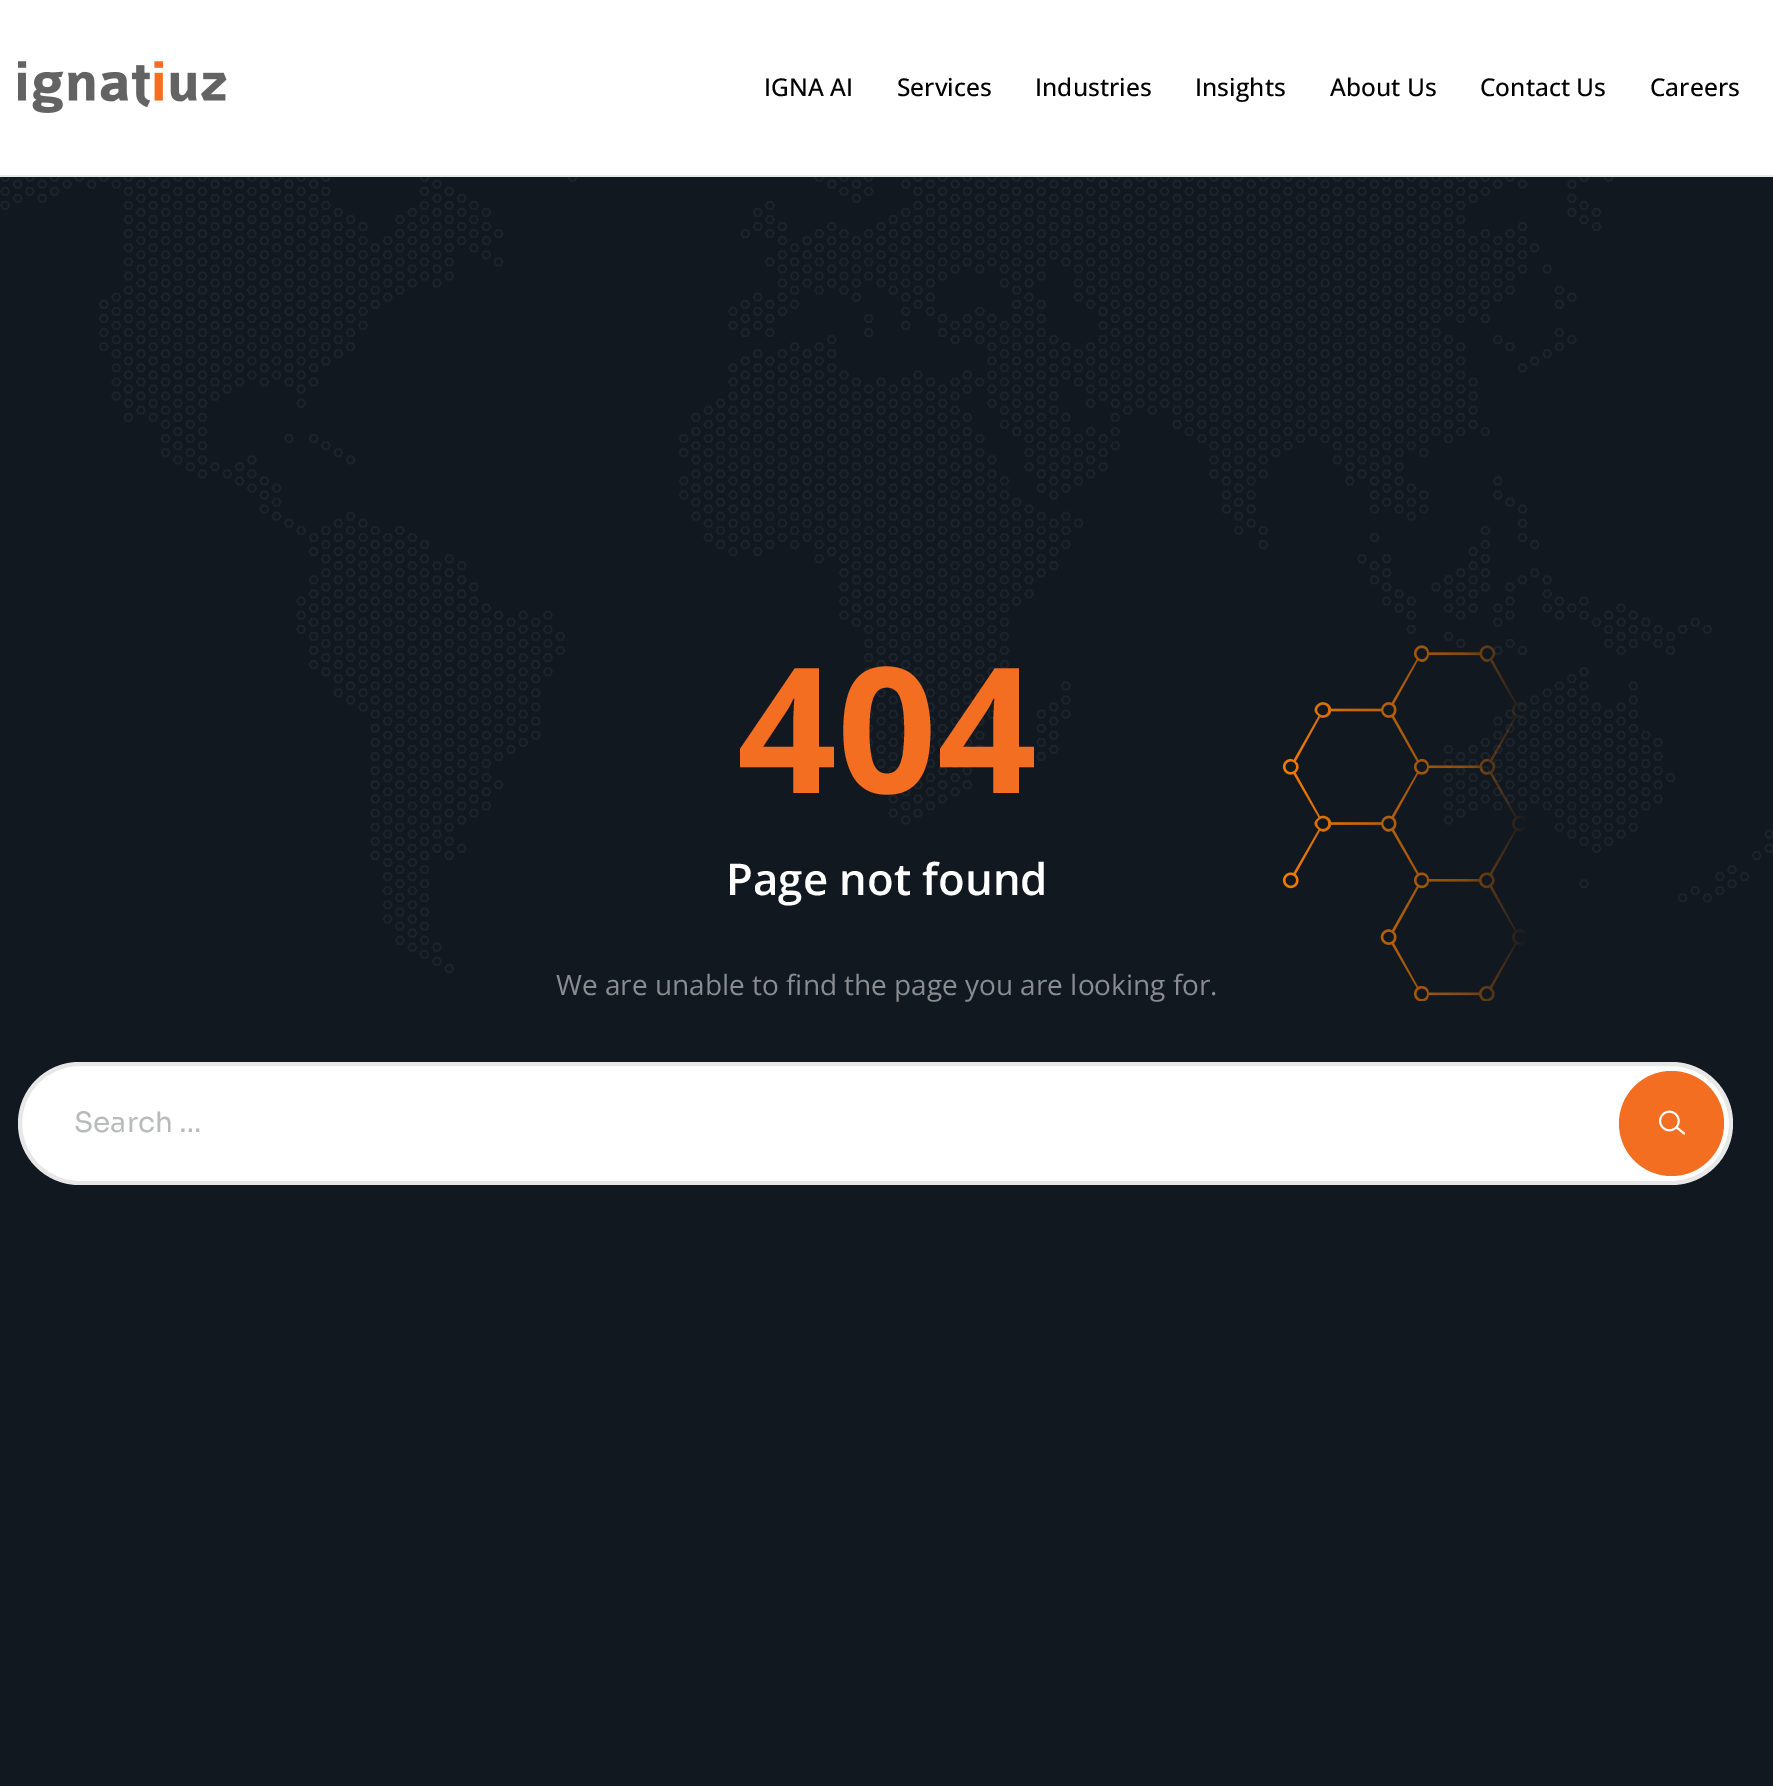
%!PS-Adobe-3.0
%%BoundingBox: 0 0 1773 1786
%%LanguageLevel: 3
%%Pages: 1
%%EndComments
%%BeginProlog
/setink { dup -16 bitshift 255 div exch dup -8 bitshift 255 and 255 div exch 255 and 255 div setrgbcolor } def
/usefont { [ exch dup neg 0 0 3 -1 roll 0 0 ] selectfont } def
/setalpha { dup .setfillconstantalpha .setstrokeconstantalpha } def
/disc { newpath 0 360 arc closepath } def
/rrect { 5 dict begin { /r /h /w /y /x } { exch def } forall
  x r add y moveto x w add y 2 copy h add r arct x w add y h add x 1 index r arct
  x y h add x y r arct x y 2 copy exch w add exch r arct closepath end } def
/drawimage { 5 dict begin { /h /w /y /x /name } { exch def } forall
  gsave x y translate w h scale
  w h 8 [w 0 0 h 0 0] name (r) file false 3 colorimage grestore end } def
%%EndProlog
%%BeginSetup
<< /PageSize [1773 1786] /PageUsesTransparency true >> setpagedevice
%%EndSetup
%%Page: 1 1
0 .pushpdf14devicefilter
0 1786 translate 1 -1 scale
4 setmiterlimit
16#121820 setink
0 0 1773 1786 rectfill
16#FFFFFF setink
0 0 1773 175 rectfill
16#E7E8E9 setink
0 175 1773 2 rectfill
(img1.raw) 18 61 209 52 drawimage
/OpenSans-Medium 24.5 usefont
16#000000 setink
[
    [(IGNA AI) 764 96]
    [(Services) 897 96]
    [(Industries) 1035 96]
    [(Insights) 1195 96]
    [(About Us) 1330 96]
    [(Contact Us) 1480 96]
    [(Careers) 1650 96]
] { aload pop moveto show } forall
(img2.raw) 0 177 1773 796 drawimage
/OpenSans-Bold 175 usefont
16#F36E21 setink
737 793 moveto (404) show
/OpenSans-SemiBold 43.75 usefont
16#FFFFFF setink
726 895 moveto (Page not found) show
/OpenSans-Regular 28 usefont
16#898C90 setink
556 995 moveto (We are unable to find the page you are looking for.) show
16#FFFFFF setink
18 1062 1715 123 61.5 rrect fill
0.1 setalpha
16#121820 setink
4 setlinewidth
20 1064 1711 119 59.5 rrect stroke
/Sora-Regular 28 usefont
1 setalpha
16#B8BABC setink
74 1132 moveto (Search …) show
16#F36E21 setink
1671.5 1123.5 52.5 disc fill
(img3.raw) 1659 1110 26 25 drawimage
(img4.raw) 1282 645 243 356 drawimage
.poppdf14devicefilter showpage
%%EOF
